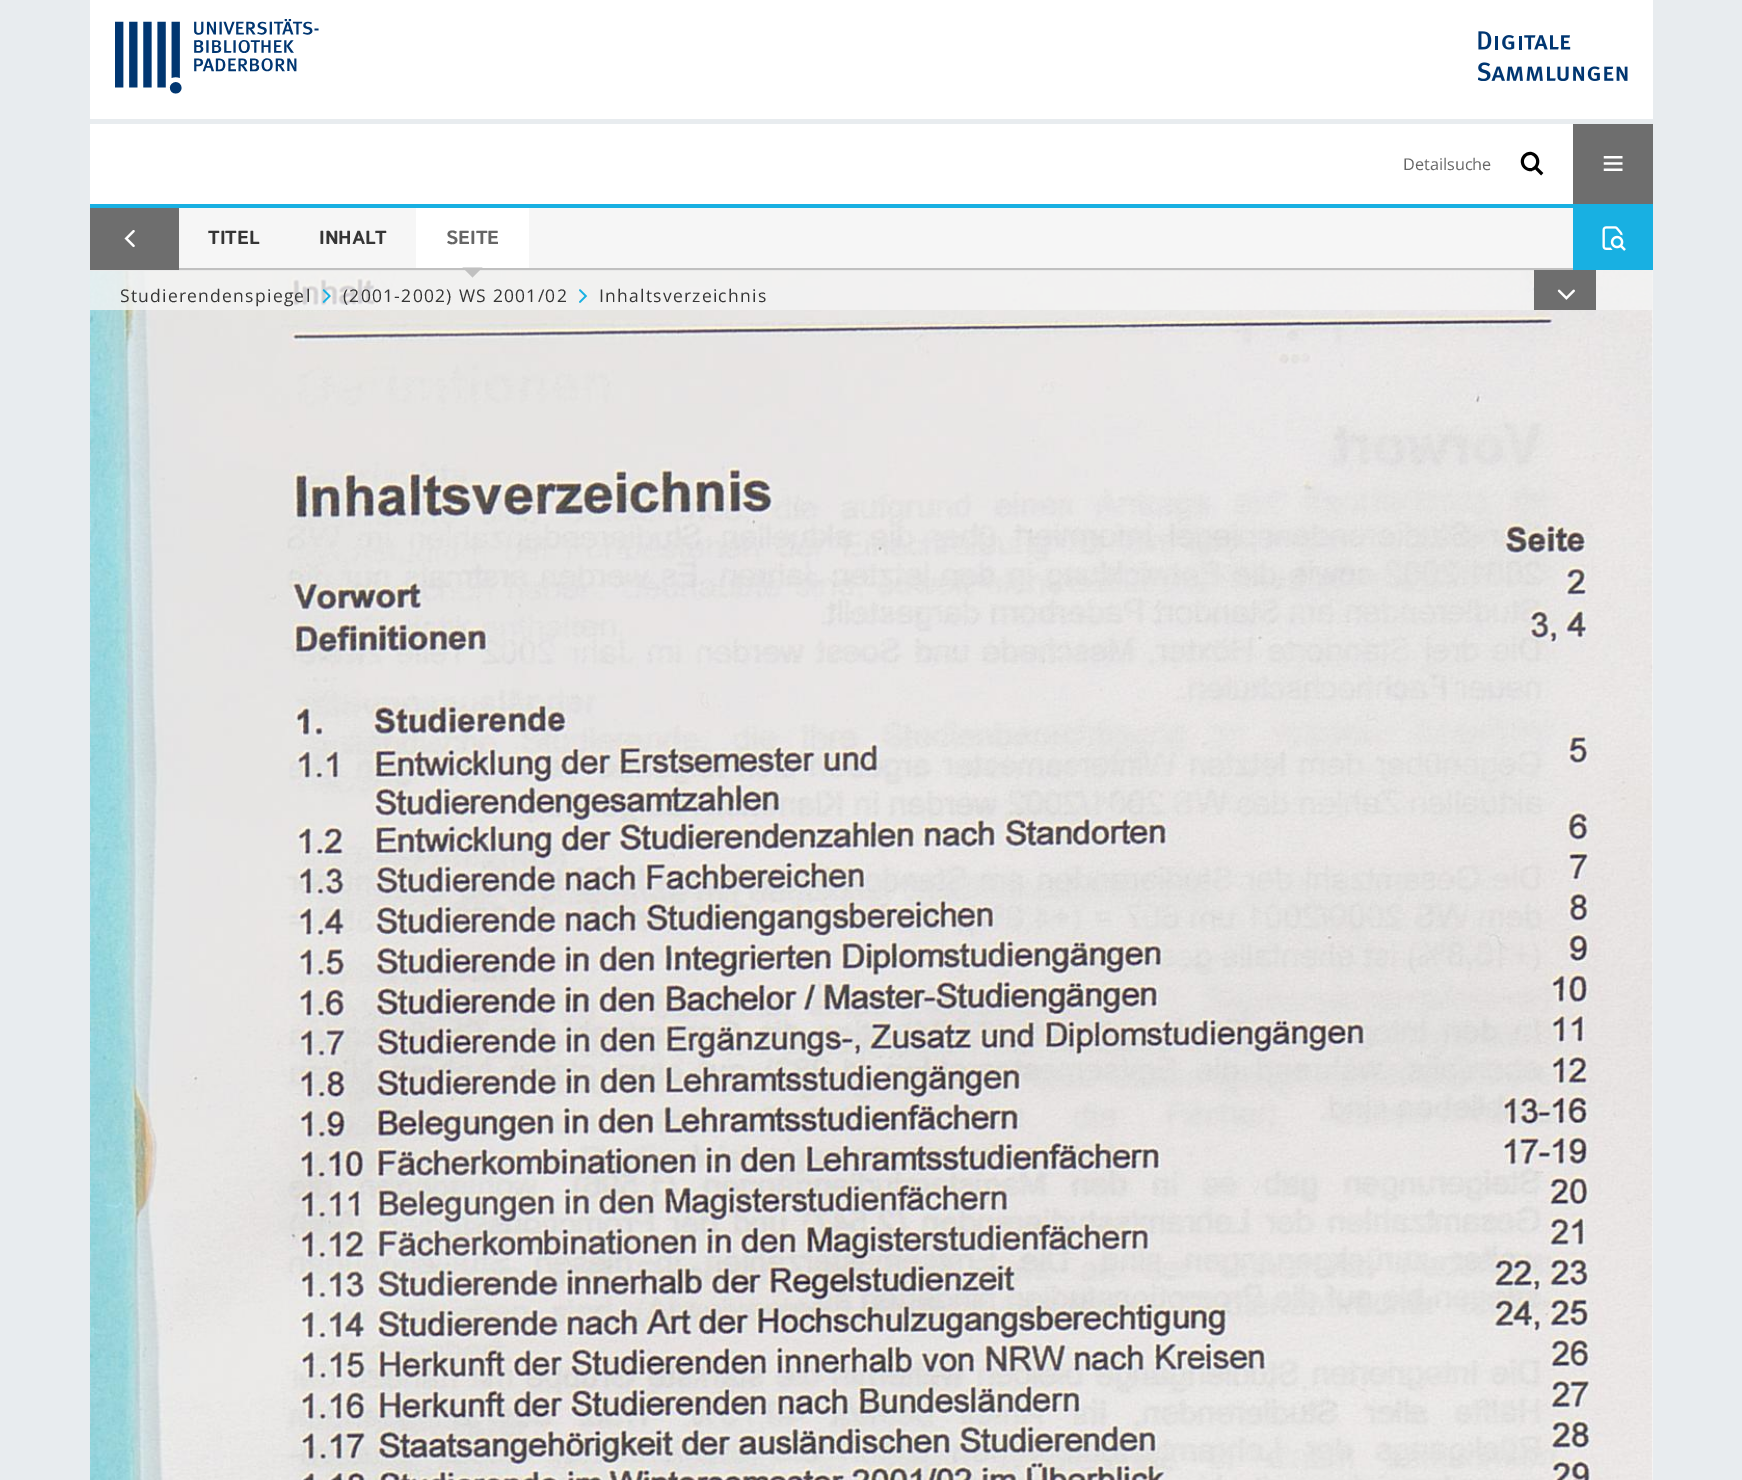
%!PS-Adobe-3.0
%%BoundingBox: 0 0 1742 1480
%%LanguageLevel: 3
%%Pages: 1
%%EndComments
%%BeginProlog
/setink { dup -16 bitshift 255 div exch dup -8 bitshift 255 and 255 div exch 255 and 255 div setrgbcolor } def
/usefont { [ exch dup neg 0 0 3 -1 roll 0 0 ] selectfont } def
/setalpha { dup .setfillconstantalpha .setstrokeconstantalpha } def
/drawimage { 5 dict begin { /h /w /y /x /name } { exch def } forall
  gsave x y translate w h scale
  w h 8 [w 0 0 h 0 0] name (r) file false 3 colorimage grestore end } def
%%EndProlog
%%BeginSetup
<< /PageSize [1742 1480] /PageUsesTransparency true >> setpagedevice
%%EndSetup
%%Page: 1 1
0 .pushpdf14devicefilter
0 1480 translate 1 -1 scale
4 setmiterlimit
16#E8ECEF setink
0 0 1742 1480 rectfill
16#FFFFFF setink
90 0 1563 1480 rectfill
16#E8ECEF setink
90 119 1563 5 rectfill
(img1.raw) 115 19 204 75 drawimage
(img2.raw) 1478 31 150 50 drawimage
/OpenSans-Regular 16.25 usefont
16#666666 setink
1403 170 moveto (Detailsuche) show
(img3.raw) 1520 151 24 25 drawimage
16#6E6E6E setink
1573 124 80 80 rectfill
(img4.raw) 1603 156 20 15 drawimage
16#18B0E2 setink
90 204 1563 4 rectfill
16#F6F6F6 setink
179 208 1394 60 rectfill
(img7.raw) 90 270 1563 1210 drawimage
16#C0C0C0 setink
90 268 1483 3 rectfill
16#6E6E6E setink
90 208 89 62 rectfill
(img5.raw) 124 230 11 18 drawimage
/IstokWeb-Bold 19 usefont
16#353535 setink
208 244 moveto (TITEL) show
319 244 moveto (INHALT) show
16#FFFFFF setink
416 208 113 60 rectfill
16#666666 setink
446 244 moveto (SEITE) show
0.8 setalpha
16#F4F4F4 setink
90 270 1563 40 rectfill
1 setalpha
16#C0C0C0 setink
462.5 267.5 moveto 482.5 267.5 lineto 472.5 277.5 lineto closepath fill
16#18B0E2 setink
1573 208 80 62 rectfill
(img6.raw) 1602 226 24 25 drawimage
/OpenSans-Regular 17.5 usefont
16#353535 setink
120 302 moveto 1.25 0 (Studierendenspiegel) ashow
(img8.raw) 322 289 9 14 drawimage
343 302 moveto 1.25 0 (\(2001-2002\) WS 2001/02) ashow
(img9.raw) 579 289 9 14 drawimage
599 302 moveto 1.25 0 (Inhaltsverzeichnis) ashow
16#6E6E6E setink
1534 270 62 40 rectfill
(img10.raw) 1557 289 18 11 drawimage
.poppdf14devicefilter showpage
%%EOF
